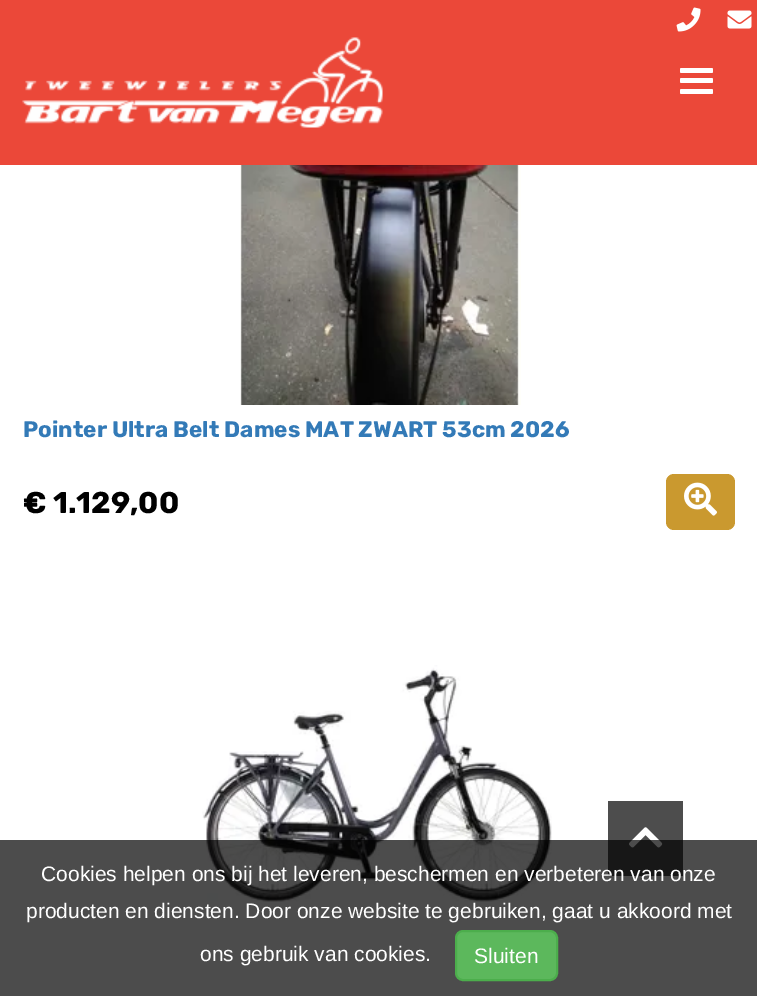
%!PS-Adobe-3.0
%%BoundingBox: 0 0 757 996
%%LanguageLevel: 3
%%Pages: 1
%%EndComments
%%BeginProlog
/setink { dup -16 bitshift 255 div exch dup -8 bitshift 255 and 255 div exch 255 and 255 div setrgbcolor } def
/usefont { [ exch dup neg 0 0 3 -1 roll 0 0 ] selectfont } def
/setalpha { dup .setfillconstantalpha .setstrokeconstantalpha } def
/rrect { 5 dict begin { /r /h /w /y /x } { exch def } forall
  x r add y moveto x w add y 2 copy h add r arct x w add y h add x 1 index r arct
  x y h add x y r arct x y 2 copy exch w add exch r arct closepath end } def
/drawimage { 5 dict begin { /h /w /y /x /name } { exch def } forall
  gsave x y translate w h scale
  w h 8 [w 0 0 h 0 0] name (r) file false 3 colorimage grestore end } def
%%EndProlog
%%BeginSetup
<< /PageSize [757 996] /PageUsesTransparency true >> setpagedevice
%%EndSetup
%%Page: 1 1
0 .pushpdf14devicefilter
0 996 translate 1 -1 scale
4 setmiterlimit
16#FFFFFF setink
0 0 757 996 rectfill
16#EB4839 setink
0 0 757 165 rectfill
(img1.raw) 676 7 25 25 drawimage
(img2.raw) 727 10 25 19 drawimage
(img3.raw) 22 37 361 91 drawimage
16#FFFFFF setink
680 68 33 5 1.5 rrect fill
680 78 33 5 1.5 rrect fill
680 89 33 5 1.5 rrect fill
(img4.raw) 240 165 281 240 drawimage
/Rubik-Bold 22.5 usefont
16#337AB7 setink
23 437 moveto (Pointer Ultra Belt Dames MAT ZWART 53cm 2026) show
/Rubik-Bold 30 usefont
16#000000 setink
23 513 moveto (€ 1.129,00) show
16#CA992F setink
666 474 69 56 8 rrect fill
(img5.raw) 684 482 33 34 drawimage
(img6.raw) 202 665 350 237 drawimage
16#4D4D4D setink
608 801 75 75 rectfill
(img7.raw) 629 827 34 21 drawimage
0.7 setalpha
16#000000 setink
0 840 757 156 rectfill
/LiberationSans-Regular 21 usefont
1 setalpha
16#FFFFFF setink
[
    [(Cookies helpen ons bij het leveren, beschermen en verbeteren van onze) 41 881]
    [(producten en diensten. Door onze website te gebruiken, gaat u akkoord met) 26 918]
    [(ons gebruik van cookies.) 200 961]
] { aload pop moveto show } forall
16#5CB85C setink
456 931 101 49 7 rrect gsave fill grestore
16#4CAE4C setink
2 setlinewidth
stroke
16#FFFFFF setink
474 963 moveto (Sluiten) show
.poppdf14devicefilter showpage
%%EOF
